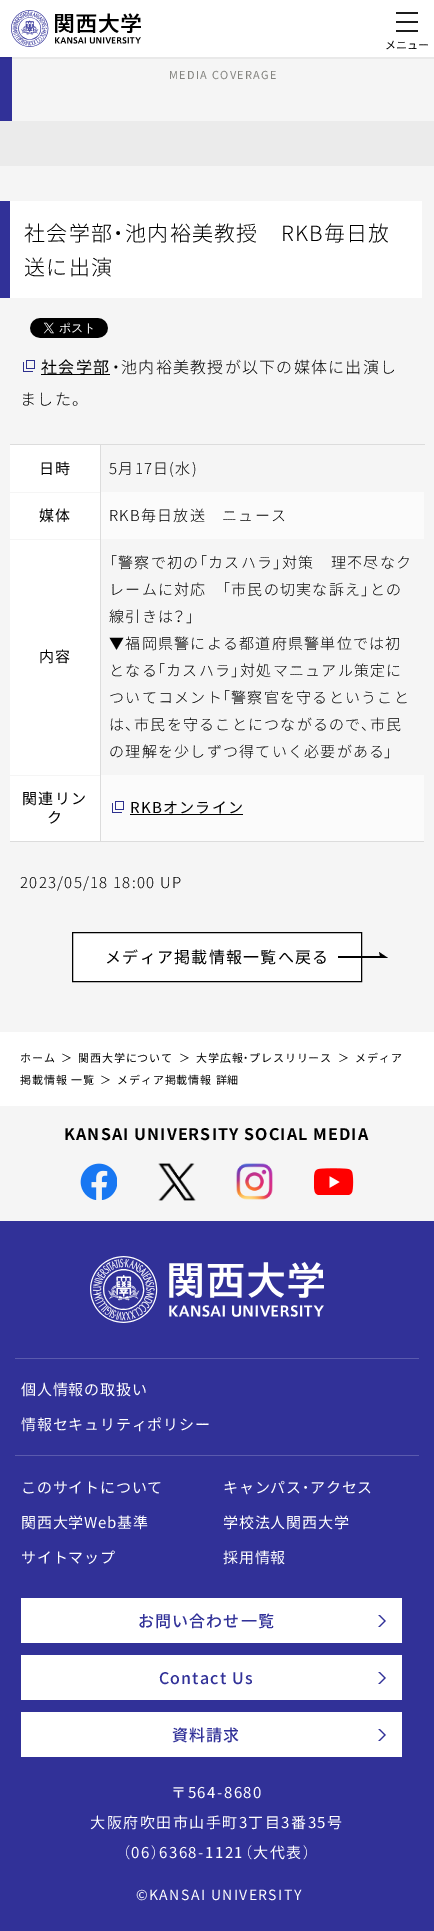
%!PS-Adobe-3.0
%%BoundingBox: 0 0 434 1931
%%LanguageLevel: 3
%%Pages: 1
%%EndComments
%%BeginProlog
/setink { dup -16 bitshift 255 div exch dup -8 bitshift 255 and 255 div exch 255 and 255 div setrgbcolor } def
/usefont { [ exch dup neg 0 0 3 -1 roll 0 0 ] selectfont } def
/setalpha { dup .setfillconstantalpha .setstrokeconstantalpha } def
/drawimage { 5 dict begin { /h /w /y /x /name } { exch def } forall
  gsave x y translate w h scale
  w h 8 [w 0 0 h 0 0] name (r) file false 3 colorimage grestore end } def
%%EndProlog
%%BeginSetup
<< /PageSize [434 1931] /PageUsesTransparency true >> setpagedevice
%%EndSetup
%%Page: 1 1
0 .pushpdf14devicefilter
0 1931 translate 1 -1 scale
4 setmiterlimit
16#FFFFFF setink
0 0 434 1931 rectfill
(img1.raw) 11 10 130 37 drawimage
[
    [0 57 12 64 16#313198]
    [12 57 422 64 16#F5F5F5]
] { aload pop setink rectfill } forall
0.05 setalpha
[
    [0 57 434 2 16#000000]
] { aload pop setink rectfill } forall
1 setalpha
[
    [396 12 22 2 16#1C1C1C]
    [396 21 22 2 16#1C1C1C]
    [396 30 22 2 16#1C1C1C]
] { aload pop setink rectfill } forall
/NotoSansJP-Regular 11 usefont
16#000000 setink
385 49 moveto (メニュー) show
16#83837F setink
169 79 moveto 1.25 0 (MEDIA COVERAGE) ashow
[
    [0 166 434 866 16#F5F5F5]
    [0 121 434 45 16#EBEBEB]
    [10 201 412 97 16#FFFFFF]
    [0 201 10 97 16#313198]
] { aload pop setink rectfill } forall
/NotoSansJP-Light 21 usefont
16#000000 setink
24 241 moveto 1.25 0 (社会学部) ashow
/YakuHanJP-Light 21 usefont
113 241 moveto 1.25 0 (・) ashow
/NotoSansJP-Light 21 usefont
125 241 moveto 1.25 0 (池内裕美教授　RKB毎日放) ashow
24 275 moveto 1.25 0 (送に出演) ashow
(img2.raw) 30 318 78 20 drawimage
(img3.raw) 23 360 12 12 drawimage
41 374 69 1 rectfill
/NotoSansJP-Regular 16 usefont
41 373 moveto 1.25 0 (社会学部) ashow
/YakuHanJP-Light 16 usefont
112 373 moveto 1.25 0 (・) ashow
/NotoSansJP-Light 16 usefont
121 373 moveto 1.25 0 (池内裕美教授が以下の媒体に出演し) ashow
20 405 moveto 1.25 0 (ました) ashow
/YakuHanJP-Light 16 usefont
72 405 moveto 1.25 0 (。) ashow
[
    [10 841 414 1 16#DCDCDC]
    [10 445 90 47 16#FFFFFF]
    [100 444 325 1 16#DCDCDC]
    [100 775 1 67 16#DCDCDC]
    [100 775 1 1 16#F5F5F5]
    [100 539 1 237 16#DCDCDC]
    [100 539 1 1 16#F5F5F5]
    [100 492 1 48 16#DCDCDC]
    [100 492 1 1 16#F5F5F5]
    [100 444 1 49 16#DCDCDC]
    [10 444 91 1 16#DCDCDC]
] { aload pop setink rectfill } forall
/NotoSansJP-Regular 15 usefont
16#000000 setink
39 474 moveto 1.25 0 (日時) ashow
/NotoSansJP-Light 15 usefont
109 474 moveto 1.25 0 (5月17日\(水\)) ashow
16#FBFBFB setink
101 492 323 47 rectfill
16#FFFFFF setink
10 493 90 46 rectfill
/NotoSansJP-Regular 15 usefont
16#000000 setink
39 521 moveto 1.25 0 (媒体) ashow
/NotoSansJP-Light 15 usefont
109 521 moveto 1.25 0 (RKB毎日放送　ニュース) ashow
16#FFFFFF setink
10 540 90 235 rectfill
/NotoSansJP-Regular 15 usefont
16#000000 setink
39 662 moveto 1.25 0 (内容) ashow
/YakuHanJP-Light 15 usefont
109 568 moveto 1.25 0 (「) ashow
/NotoSansJP-Light 15 usefont
118 568 moveto 1.25 0 (警察で初の) ashow
/YakuHanJP-Light 15 usefont
199 568 moveto 1.25 0 (「) ashow
/NotoSansJP-Light 15 usefont
208 568 moveto 1.25 0 (カスハラ) ashow
/YakuHanJP-Light 15 usefont
273 568 moveto 1.25 0 (」) ashow
/NotoSansJP-Light 15 usefont
282 568 moveto 1.25 0 (対策　理不尽なク) ashow
109 595 moveto 1.25 0 (レームに対応) ashow
/YakuHanJP-Light 15 usefont
222 595 moveto 1.25 0 (「) ashow
/NotoSansJP-Light 15 usefont
231 595 moveto 1.25 0 (市民の切実な訴え) ashow
/YakuHanJP-Light 15 usefont
361 595 moveto 1.25 0 (」) ashow
/NotoSansJP-Light 15 usefont
370 595 moveto 1.25 0 (との) ashow
109 622 moveto 1.25 0 (線引きは) ashow
/YakuHanJP-Light 15 usefont
173 622 moveto 1.25 0 (？」) ashow
/NotoSansJP-Light 15 usefont
109 649 moveto 1.25 0 (▼福岡県警による都道府県警単位では初) ashow
109 676 moveto 1.25 0 (となる) ashow
/YakuHanJP-Light 15 usefont
157 676 moveto 1.25 0 (「) ashow
/NotoSansJP-Light 15 usefont
166 676 moveto 1.25 0 (カスハラ) ashow
/YakuHanJP-Light 15 usefont
231 676 moveto 1.25 0 (」) ashow
/NotoSansJP-Light 15 usefont
240 676 moveto 1.25 0 (対処マニュアル策定に) ashow
109 703 moveto 1.25 0 (ついてコメント) ashow
/YakuHanJP-Light 15 usefont
222 703 moveto 1.25 0 (「) ashow
/NotoSansJP-Light 15 usefont
231 703 moveto 1.25 0 (警察官を守るということ) ashow
109 730 moveto 1.25 0 (は) ashow
/YakuHanJP-Light 15 usefont
125 730 moveto 1.25 0 (、) ashow
/NotoSansJP-Light 15 usefont
134 730 moveto 1.25 0 (市民を守ることにつながるので) ashow
/YakuHanJP-Light 15 usefont
361 730 moveto 1.25 0 (、) ashow
/NotoSansJP-Light 15 usefont
370 730 moveto 1.25 0 (市民) ashow
109 757 moveto 1.25 0 (の理解を少しずつ得ていく必要がある) ashow
/YakuHanJP-Light 15 usefont
384 757 moveto 1.25 0 (」) ashow
16#FBFBFB setink
101 775 323 66 rectfill
16#FFFFFF setink
10 776 90 65 rectfill
/NotoSansJP-Regular 15 usefont
16#000000 setink
22 804 moveto 1.25 0 (関連リン) ashow
47 823 moveto 1.25 0 (ク) ashow
(img4.raw) 112 801 12 12 drawimage
130 813 moveto 1.25 0 (RKBオンライン) ashow
130 814 113 1 rectfill
/NotoSansJP-Light 15 usefont
20 888 moveto 1.25 0 (2023/05/18 18:00 UP) ashow
16#FFFFFF setink
72.5 932.5 moveto 361.5 932.5 lineto 361.5 981.5 lineto 72.5 981.5 lineto closepath gsave fill grestore
16#000000 setink
stroke
/NotoSansJP-Regular 16 usefont
105 963 moveto 1.25 0 (メディア掲載情報一覧へ戻る) ashow
379 952 moveto 380 956 lineto 338 956 lineto 338 958 lineto 388 958 lineto closepath fill
/NotoSansJP-Regular 11 usefont
20 1062 moveto 0.9 0 (ホーム) ashow
61 1062 moveto 0.9 0 (＞) ashow
78 1062 moveto 0.9 0 (関西大学について) ashow
179 1062 moveto 0.9 0 (＞) ashow
196 1062 moveto 0.9 0 (大学広報) ashow
/YakuHanJP-Light 11 usefont
243 1062 moveto 0.9 0 (・) ashow
/NotoSansJP-Regular 11 usefont
249 1062 moveto 0.9 0 (プレスリリース) ashow
338 1062 moveto 0.9 0 (＞) ashow
355 1062 moveto 0.9 0 (メディア) ashow
20 1084 moveto 0.9 0 (掲載情報 一覧) ashow
100 1084 moveto 0.9 0 (＞) ashow
117 1084 moveto 0.9 0 (メディア掲載情報 詳細) ashow
16#313198 setink
0 1221 434 710 rectfill
16#F5F5F5 setink
0 1106 434 115 rectfill
/NotoSansJP-Bold 16 usefont
16#000000 setink
64 1140 moveto 1.1 0 (KANSAI UNIVERSITY SOCIAL MEDIA) ashow
(img5.raw) 80 1163 37 37 drawimage
(img6.raw) 158 1163 38 38 drawimage
(img7.raw) 236 1163 37 37 drawimage
(img8.raw) 314 1168 40 27 drawimage
(img9.raw) 90 1256 234 67 drawimage
16#5A5AAD setink
15 1358 404 1 rectfill
/NotoSansJP-Regular 15 usefont
16#FFFFFF setink
21 1395 moveto 0.8 0 (個人情報の取扱い) ashow
16#5A5AAD setink
15 1455 404 1 rectfill
16#FFFFFF setink
21 1430 moveto 0.8 0 (情報セキュリティポリシー) ashow
21 1493 moveto 0.8 0 (このサイトについて) ashow
223 1493 moveto 0.8 0 (キャンパス) ashow
/YakuHanJP-Light 15 usefont
302 1493 moveto 0.8 0 (・) ashow
/NotoSansJP-Regular 15 usefont
310 1493 moveto 0.8 0 (アクセス) ashow
21 1528 moveto 0.8 0 (関西大学Web基準) ashow
223 1528 moveto 0.8 0 (学校法人関西大学) ashow
21 1563 moveto 0.8 0 (サイトマップ) ashow
223 1563 moveto 0.8 0 (採用情報) ashow
21 1598 381 45 rectfill
/NotoSansJP-Medium 16 usefont
16#313198 setink
138 1627 moveto 1.1 0 (お問い合わせ一覧) ashow
(img10.raw) 378 1615 8 12 drawimage
16#FFFFFF setink
21 1655 381 45 rectfill
16#313198 setink
159 1684 moveto 1.1 0 (Contact Us) ashow
(img10.raw) 378 1672 8 12 drawimage
16#FFFFFF setink
21 1712 381 45 rectfill
16#313198 setink
172 1741 moveto 1.1 0 (資料請求) ashow
(img10.raw) 378 1729 8 12 drawimage
/NotoSansJP-Regular 15 usefont
16#FFFFFF setink
171 1798 moveto 1.5 0 (〒564-8680) ashow
90 1828 moveto 1.5 0 (大阪府吹田市山手町3丁目3番35号) ashow
/YakuHanJP-Light 15 usefont
123 1858 moveto 1.5 0 (（) ashow
/NotoSansJP-Regular 15 usefont
131 1858 moveto 1.5 0 (06) ashow
/YakuHanJP-Light 15 usefont
151 1858 moveto 1.5 0 (）) ashow
/NotoSansJP-Regular 15 usefont
159 1858 moveto 1.5 0 (6368-1121) ashow
/YakuHanJP-Light 15 usefont
245 1858 moveto 1.5 0 (（) ashow
/NotoSansJP-Regular 15 usefont
253 1858 moveto 1.5 0 (大代表) ashow
/YakuHanJP-Light 15 usefont
303 1858 moveto 1.5 0 (）) ashow
/NotoSansJP-Regular 14 usefont
136 1900 moveto 1.4 0 (©KANSAI UNIVERSITY) ashow
.poppdf14devicefilter showpage
%%EOF
